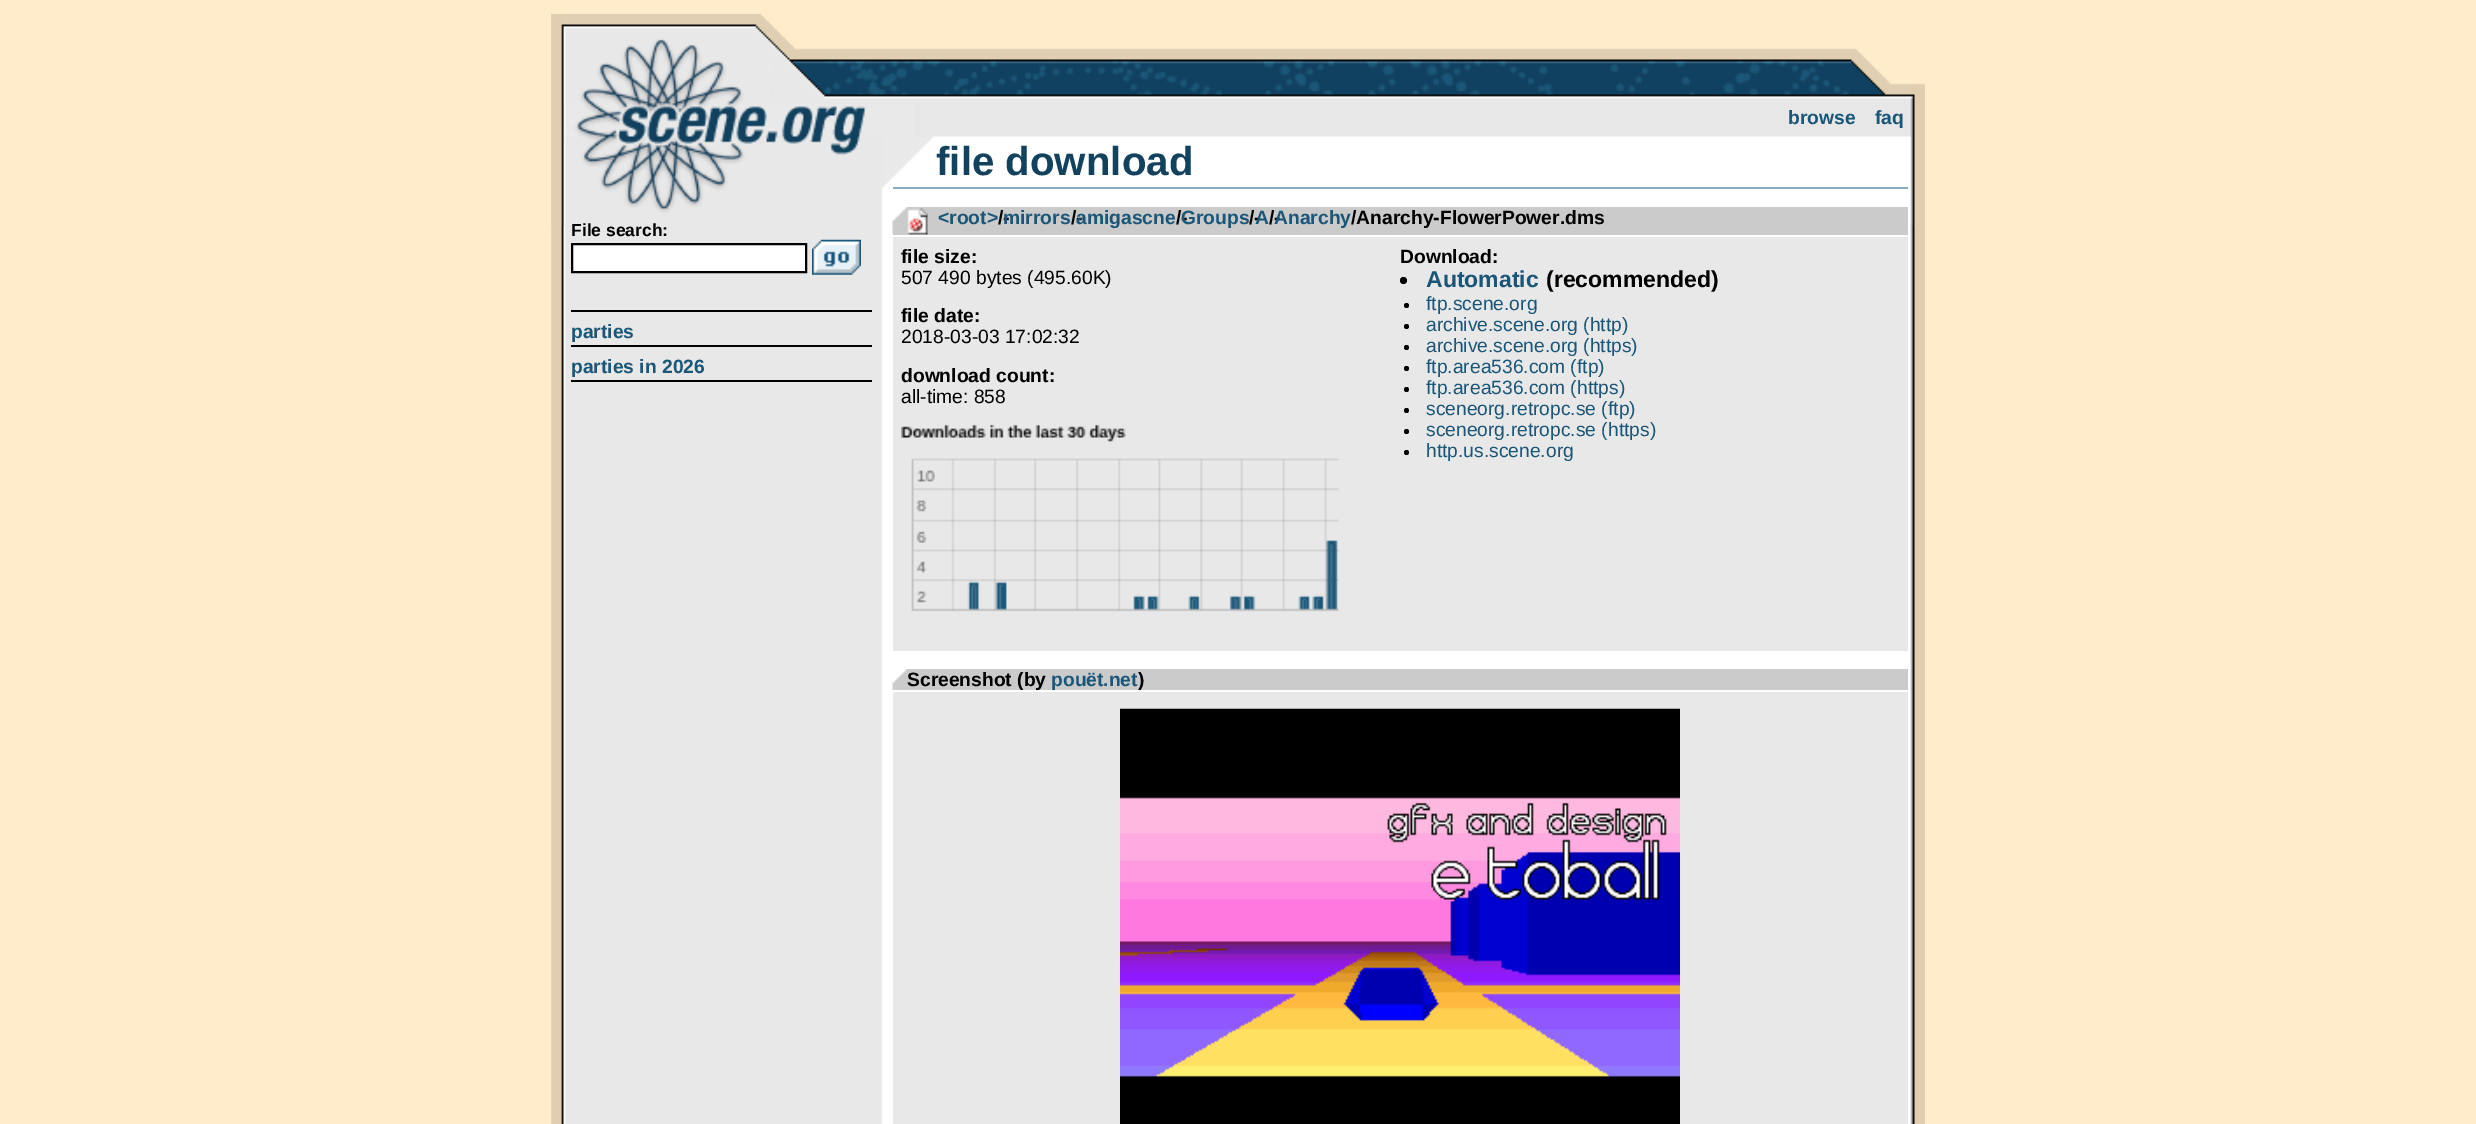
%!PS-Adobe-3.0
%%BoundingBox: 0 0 2476 1124
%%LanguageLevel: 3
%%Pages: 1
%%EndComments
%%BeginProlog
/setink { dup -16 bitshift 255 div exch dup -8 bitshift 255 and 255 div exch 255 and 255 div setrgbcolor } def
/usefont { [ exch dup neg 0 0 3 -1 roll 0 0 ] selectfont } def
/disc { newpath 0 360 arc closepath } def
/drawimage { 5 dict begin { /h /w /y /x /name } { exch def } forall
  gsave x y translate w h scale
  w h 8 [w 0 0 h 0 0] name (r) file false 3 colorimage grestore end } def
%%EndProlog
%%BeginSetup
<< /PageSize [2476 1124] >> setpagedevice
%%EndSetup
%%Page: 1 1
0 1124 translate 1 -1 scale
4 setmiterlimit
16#FFECCB setink
0 0 2476 1124 rectfill
(img1.raw) 551 14 1374 1110 drawimage
(img2.raw) 551 14 1374 212 drawimage
/LiberationSans-Bold 19.25 usefont
16#1A5678 setink
1788 124 moveto (browse) show
1875 124 moveto (faq) show
/LiberationSans-Bold 17.5 usefont
16#000000 setink
571 236 moveto (File search:) show
16#FFFFFF setink
572 244 moveto 806 244 lineto 806 272 lineto 572 272 lineto closepath gsave fill grestore
16#000000 setink
2 setlinewidth
stroke
(img3.raw) 812 239 49 36 drawimage
571 310 301 2 rectfill
/LiberationSans-Bold 19.25 usefont
16#1A5678 setink
571 338 moveto (parties) show
16#000000 setink
571 345 301 2 rectfill
571 380 301 2 rectfill
16#1A5678 setink
571 373 moveto (parties in 2026) show
16#8AABBC setink
893 187 1015 2 rectfill
/LiberationSans-Bold 40.25 usefont
16#13425F setink
936 175 moveto (file download) show
16#E8E8E8 setink
893 237 1015 414 rectfill
16#CBCBCB setink
893 207 1015 28 rectfill
(img4.raw) 892 207 15 26 drawimage
(img5.raw) 907 208 21 27 drawimage
/LiberationSans-Bold 19.25 usefont
16#000000 setink
998 224 moveto (/-) show
16#1A5678 setink
1003 224 moveto (mirrors) show
16#000000 setink
1071 224 moveto (/-) show
16#1A5678 setink
1076 224 moveto (amigascne) show
16#000000 setink
1176 224 moveto (/-) show
16#1A5678 setink
1181 224 moveto (Groups) show
16#000000 setink
1249 224 moveto (/-) show
16#1A5678 setink
1255 224 moveto (A) show
16#000000 setink
1269 224 moveto (/-) show
16#1A5678 setink
938 224 moveto (<root>) show
1274 224 moveto (Anarchy) show
16#000000 setink
1351 224 moveto (/Anarchy-FlowerPower.dms) show
901 263 moveto (file size:) show
/LiberationSans-Regular 19.25 usefont
901 284 moveto (507 490 bytes \(495.60K\)) show
/LiberationSans-Bold 19.25 usefont
901 322 moveto (file date:) show
/LiberationSans-Regular 19.25 usefont
901 343 moveto (2018-03-03 17:02:32) show
/LiberationSans-Bold 19.25 usefont
901 382 moveto (download count:) show
/LiberationSans-Regular 19.25 usefont
901 403 moveto (all-time: 858) show
(img6.raw) 901 424 438 188 drawimage
/LiberationSans-Bold 19.25 usefont
1400 263 moveto (Download:) show
1403.5 280.5 3.5 disc fill
/LiberationSans-Bold 23 usefont
16#1A5678 setink
1426 287 moveto (Automatic) show
16#000000 setink
1546 287 moveto (\(recommended\)) show
1406.5 305.5 2.5 disc fill
/LiberationSans-Regular 19.25 usefont
16#1A5678 setink
1426 310 moveto (ftp.scene.org) show
16#000000 setink
1406.5 326.5 2.5 disc fill
16#1A5678 setink
1426 331 moveto (archive.scene.org \(http\)) show
16#000000 setink
1406.5 347.5 2.5 disc fill
16#1A5678 setink
1426 352 moveto (archive.scene.org \(https\)) show
16#000000 setink
1406.5 368.5 2.5 disc fill
16#1A5678 setink
1426 373 moveto (ftp.area536.com \(ftp\)) show
16#000000 setink
1406.5 389.5 2.5 disc fill
16#1A5678 setink
1426 394 moveto (ftp.area536.com \(https\)) show
16#000000 setink
1406.5 410.5 2.5 disc fill
16#1A5678 setink
1426 415 moveto (sceneorg.retropc.se \(ftp\)) show
16#000000 setink
1406.5 431.5 2.5 disc fill
16#1A5678 setink
1426 436 moveto (sceneorg.retropc.se \(https\)) show
16#000000 setink
1406.5 452.5 2.5 disc fill
16#1A5678 setink
1426 457 moveto (http.us.scene.org) show
16#E8E8E8 setink
893 692 1015 432 rectfill
16#CBCBCB setink
906 669 1002 21 rectfill
(img7.raw) 892 669 15 23 drawimage
16#FFFFFF setink
893 690 14 2 rectfill
/LiberationSans-Bold 19.25 usefont
16#000000 setink
907 686 moveto (Screenshot \(by) show
16#1A5678 setink
1051 686 moveto (pouët.net) show
16#000000 setink
1138 686 moveto (\)) show
(img8.raw) 1120 708 560 416 drawimage
showpage
%%EOF
